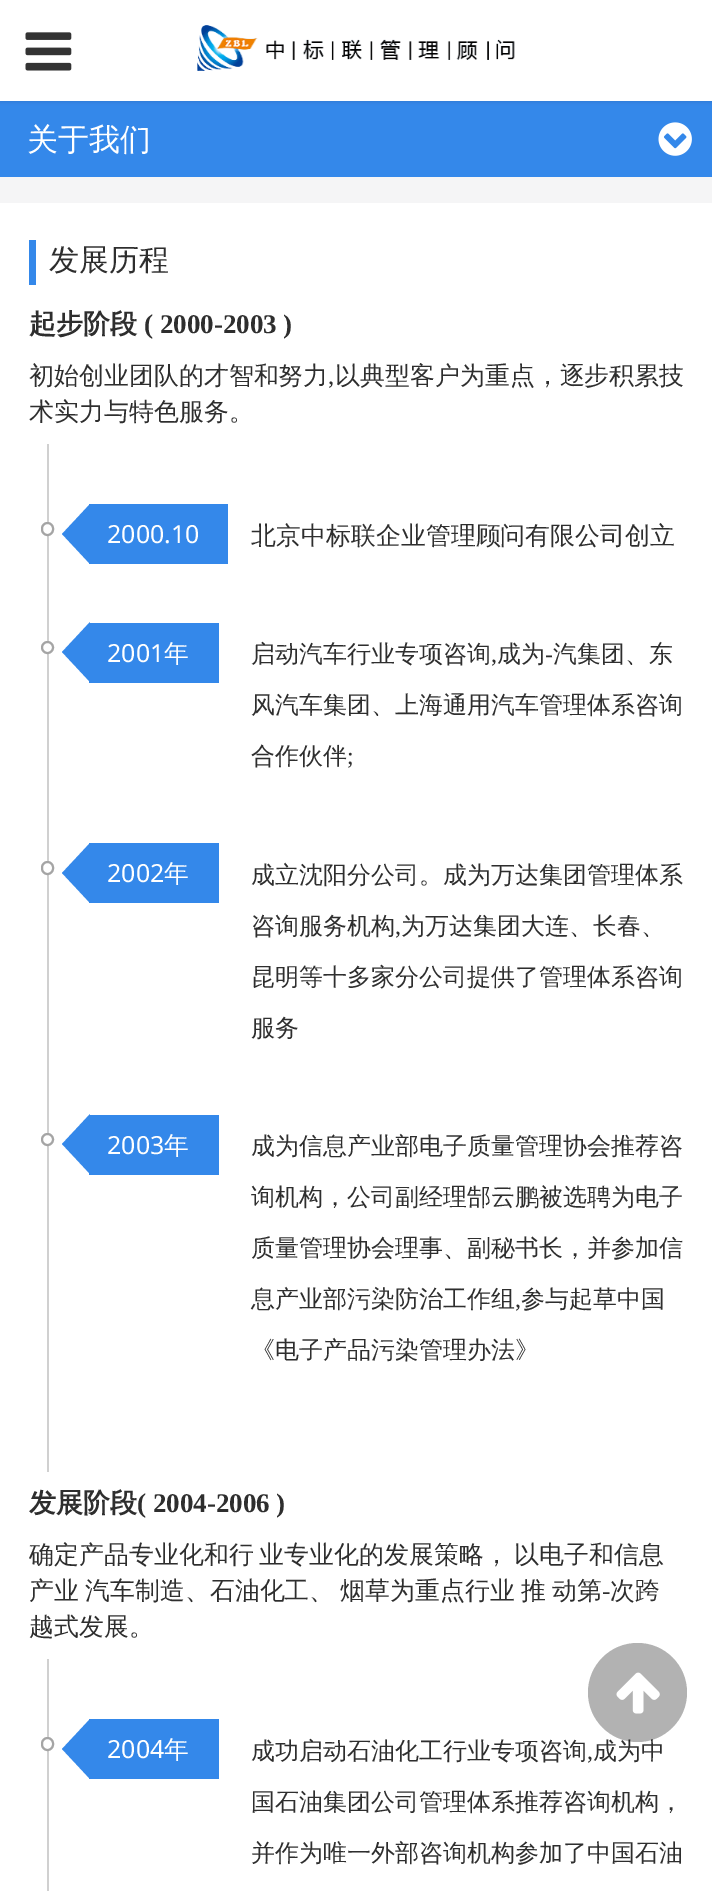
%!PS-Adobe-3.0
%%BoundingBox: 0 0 712 1891
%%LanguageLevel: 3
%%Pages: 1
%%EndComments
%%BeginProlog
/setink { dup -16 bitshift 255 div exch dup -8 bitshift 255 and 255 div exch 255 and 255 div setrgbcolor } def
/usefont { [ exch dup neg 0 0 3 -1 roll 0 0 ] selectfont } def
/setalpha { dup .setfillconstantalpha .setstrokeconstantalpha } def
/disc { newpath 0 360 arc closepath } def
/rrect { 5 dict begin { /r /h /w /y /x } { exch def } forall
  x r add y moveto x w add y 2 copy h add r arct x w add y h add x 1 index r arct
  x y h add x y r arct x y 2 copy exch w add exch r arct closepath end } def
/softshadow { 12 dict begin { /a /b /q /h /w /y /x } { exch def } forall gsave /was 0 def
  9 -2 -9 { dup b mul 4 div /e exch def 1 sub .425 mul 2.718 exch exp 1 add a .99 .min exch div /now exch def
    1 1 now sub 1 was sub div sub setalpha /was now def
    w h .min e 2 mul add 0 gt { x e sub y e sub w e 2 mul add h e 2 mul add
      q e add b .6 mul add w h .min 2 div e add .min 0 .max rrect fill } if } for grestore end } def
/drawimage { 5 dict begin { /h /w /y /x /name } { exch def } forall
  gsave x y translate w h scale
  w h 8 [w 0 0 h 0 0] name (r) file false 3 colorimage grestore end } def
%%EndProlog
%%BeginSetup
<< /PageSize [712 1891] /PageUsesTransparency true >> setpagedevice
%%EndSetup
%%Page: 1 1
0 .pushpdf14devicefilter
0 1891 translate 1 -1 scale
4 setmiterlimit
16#F5F5F6 setink
0 0 712 1891 rectfill
16#3488EA setink
0 101 712 76 rectfill
16#000000 setink
0 2 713 100 0 1.5 0.08 softshadow
16#FFFFFF setink
0 0 712 101 rectfill
(img1.raw) 25 32 47 39 drawimage
(img2.raw) 197 25 318 46 drawimage
/WenQuanYiZenHei-Medium 31 usefont
27 150 moveto (关于我们) show
(img3.raw) 658 122 34 34 drawimage
0 203 712 1688 rectfill
16#3488EA setink
29 240 7 45 rectfill
/WenQuanYiZenHei-Medium 30 usefont
16#2E2E2E setink
49 270 moveto (发展历程) show
/WenQuanYiZenHei-Bold 27 usefont
29 333 moveto (起步阶段) show
/LiberationSerif-Bold 27 usefont
144 333 moveto (\( 2000-2003 \)) show
/WenQuanYiZenHei-Medium 24.95 usefont
29 384 moveto (初始创业团队的才智和努力) show
/LiberationSerif-Regular 24.95 usefont
328 384 moveto (,) show
/WenQuanYiZenHei-Medium 24.95 usefont
335 384 moveto (以典型客户为重点，逐步积累技) show
29 420 moveto (术实力与特色服务。) show
16#D0D0D0 setink
47 444 2 1028 rectfill
16#FFFFFF setink
42 523 11 12 5.5 rrect gsave fill grestore
16#A5A5A5 setink
2 setlinewidth
stroke
16#3488EA setink
89 504 139 60 rectfill
90 504 moveto 90 564 lineto 62 534 lineto closepath fill
/NotoSans-Regular 24.95 usefont
16#FFFFFF setink
107 543 moveto (2000.10) show
/WenQuanYiZenHei-Medium 24.95 usefont
16#2E2E2E setink
251 544 moveto (北京中标联企业管理顾问有限公司创立) show
16#FFFFFF setink
47.5 647.5 5.5 disc gsave fill grestore
16#A5A5A5 setink
stroke
16#3488EA setink
89 623 130 60 rectfill
90 622 moveto 90 682 lineto 62 652 lineto closepath fill
/NotoSans-Regular 24.95 usefont
16#FFFFFF setink
107 662 moveto (2001) show
/WenQuanYiZenHei-Medium 24.95 usefont
164 662 moveto (年) show
/WenQuanYiZenHei-Medium 24 usefont
16#2E2E2E setink
251 662 moveto (启动汽车行业专项咨询) show
497 662 moveto (成为) show
/LiberationSerif-Regular 24 usefont
545 662 moveto (-) show
/WenQuanYiZenHei-Medium 24 usefont
553 662 moveto (汽集团、东) show
/LiberationSerif-Regular 24 usefont
491 662 moveto (,) show
/WenQuanYiZenHei-Medium 24 usefont
251 713 moveto (风汽车集团、上海通用汽车管理体系咨询) show
251 764 moveto (合作伙伴) show
/LiberationSerif-Regular 24 usefont
347 764 moveto (;) show
16#FFFFFF setink
42 862 11 12 5.5 rrect gsave fill grestore
16#A5A5A5 setink
stroke
16#3488EA setink
89 843 130 60 rectfill
90 843 moveto 90 903 lineto 62 873 lineto closepath fill
/NotoSans-Regular 24.95 usefont
16#FFFFFF setink
107 882 moveto (2002) show
/WenQuanYiZenHei-Medium 24.95 usefont
164 882 moveto (年) show
/WenQuanYiZenHei-Medium 24 usefont
16#2E2E2E setink
251 883 moveto (成立沈阳分公司。成为万达集团管理体系) show
251 934 moveto (咨询服务机构) show
/LiberationSerif-Regular 24 usefont
395 934 moveto (,) show
/WenQuanYiZenHei-Medium 24 usefont
[
    [(为万达集团大连、长春、) 401 934]
    [(昆明等十多家分公司提供了管理体系咨询) 251 985]
    [(服务) 251 1036]
] { aload pop moveto show } forall
16#FFFFFF setink
47.5 1139.5 5.5 disc gsave fill grestore
16#A5A5A5 setink
stroke
16#3488EA setink
89 1115 130 60 rectfill
90 1114 moveto 90 1174 lineto 62 1144 lineto closepath fill
/NotoSans-Regular 24.95 usefont
16#FFFFFF setink
107 1154 moveto (2003) show
/WenQuanYiZenHei-Medium 24.95 usefont
164 1154 moveto (年) show
/WenQuanYiZenHei-Medium 24 usefont
16#2E2E2E setink
[
    [(成为信息产业部电子质量管理协会推荐咨) 251 1154]
    [(询机构，公司副经理郜云鹏被选聘为电子) 251 1205]
    [(质量管理协会理事、副秘书长，并参加信) 251 1256]
    [(息产业部污染防治工作组) 251 1307]
] { aload pop moveto show } forall
/LiberationSerif-Regular 24 usefont
515 1307 moveto (,) show
/WenQuanYiZenHei-Medium 24 usefont
521 1307 moveto (参与起草中国) show
251 1358 moveto (《电子产品污染管理办法》) show
/WenQuanYiZenHei-Bold 27 usefont
29 1512 moveto (发展阶段) show
/LiberationSerif-Bold 27 usefont
137 1512 moveto (\( 2004-2006 \)) show
/WenQuanYiZenHei-Medium 24.95 usefont
29 1563 moveto -2 0 32 (确定产品专业化和行 业专业化的发展策略， 以电子和信息) widthshow
29 1599 moveto -1.5 0 32 (产业 汽车制造、石油化工、 烟草为重点行业 推 动第) widthshow
/LiberationSerif-Regular 24.95 usefont
602 1599 moveto (-) show
/WenQuanYiZenHei-Medium 24.95 usefont
610 1599 moveto (次跨) show
29 1635 moveto (越式发展。) show
16#D0D0D0 setink
47 1659 2 232 rectfill
16#FFFFFF setink
42 1738 11 12 5.5 rrect gsave fill grestore
16#A5A5A5 setink
stroke
16#3488EA setink
89 1719 130 60 rectfill
90 1719 moveto 90 1779 lineto 62 1749 lineto closepath fill
/NotoSans-Regular 24.95 usefont
16#FFFFFF setink
107 1758 moveto (2004) show
/WenQuanYiZenHei-Medium 24.95 usefont
164 1758 moveto (年) show
/WenQuanYiZenHei-Medium 24 usefont
16#2E2E2E setink
251 1759 moveto (成功启动石油化工行业专项咨询) show
/LiberationSerif-Regular 24 usefont
587 1759 moveto (,) show
/WenQuanYiZenHei-Medium 24 usefont
[
    [(成为中) 593 1759]
    [(国石油集团公司管理体系推荐咨询机构，) 251 1810]
    [(并作为唯一外部咨询机构参加了中国石油) 251 1861]
] { aload pop moveto show } forall
0.3 setalpha
16#000000 setink
637.5 1692.5 49.5 disc fill
1 setalpha
(img4.raw) 616 1672 44 42 drawimage
.poppdf14devicefilter showpage
%%EOF
